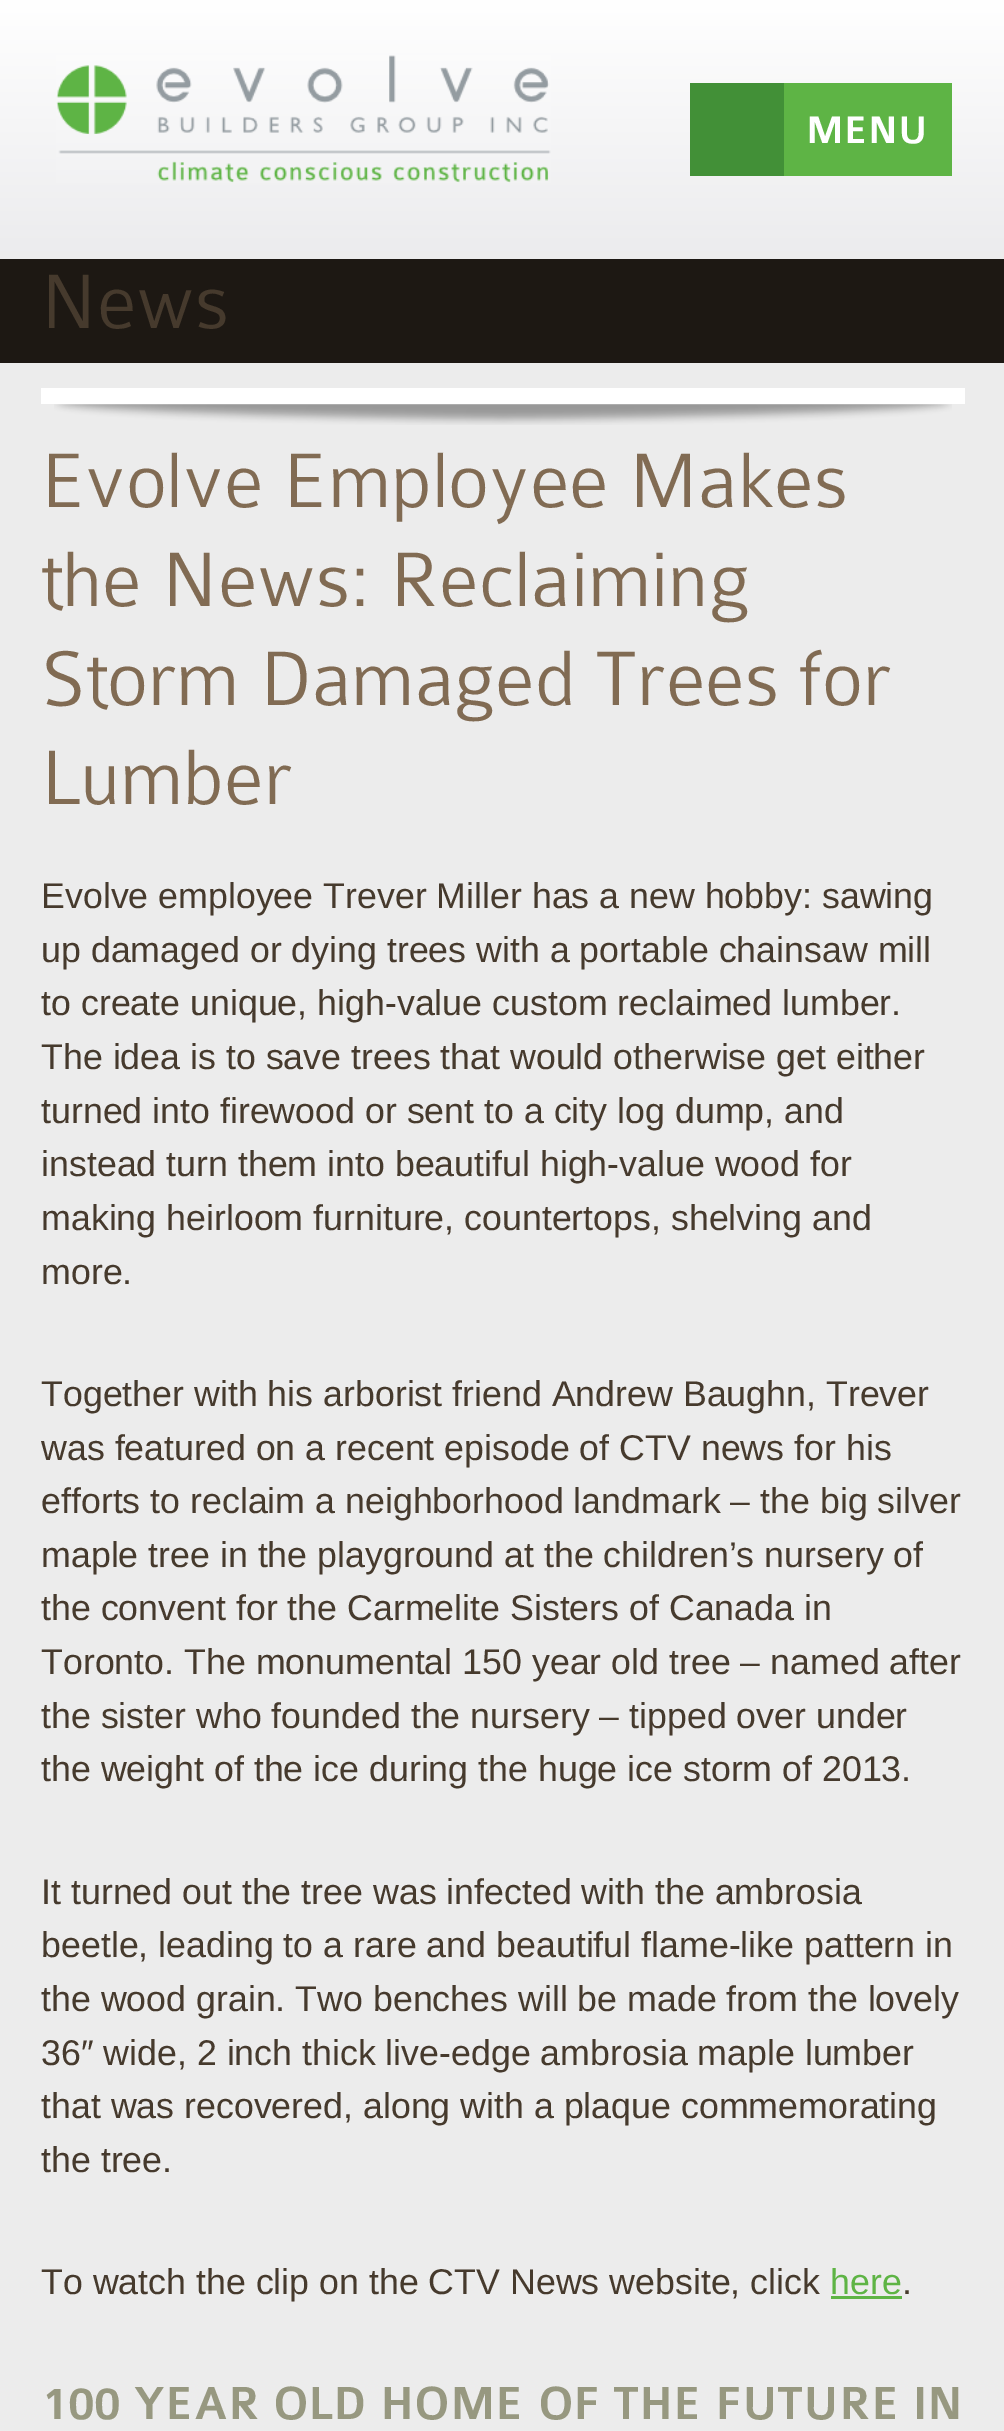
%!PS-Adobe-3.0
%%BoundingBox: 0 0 1004 2431
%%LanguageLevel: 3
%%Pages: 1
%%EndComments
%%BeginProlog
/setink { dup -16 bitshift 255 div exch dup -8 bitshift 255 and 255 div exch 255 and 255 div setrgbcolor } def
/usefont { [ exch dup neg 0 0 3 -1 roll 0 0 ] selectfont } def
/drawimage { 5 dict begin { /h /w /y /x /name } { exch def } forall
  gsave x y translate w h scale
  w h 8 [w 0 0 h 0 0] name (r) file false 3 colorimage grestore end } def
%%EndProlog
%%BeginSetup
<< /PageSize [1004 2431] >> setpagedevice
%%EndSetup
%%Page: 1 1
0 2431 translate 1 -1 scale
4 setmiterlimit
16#ECECEC setink
0 0 1004 2431 rectfill
gsave 0 0 moveto 1004 0 lineto 1004 251 lineto 0 251 lineto closepath clip newpath
<< /ShadingType 2 /ColorSpace /DeviceRGB /Coords [503 0 503 259] /Extend [true true] /Function << /FunctionType 2 /Domain [0 1] /C0 [1 1 1] /C1 [0.925 0.925 0.933] /N 1 >> >> shfill grestore
(img1.raw) 56 55 495 128 drawimage
16#5EB445 setink
784 83 168 93 rectfill
16#429037 setink
690 83 94 93 rectfill
/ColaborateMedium-Medium 41 usefont
16#FFFFFF setink
806 143 moveto (MENU) show
16#1D1813 setink
0 259 1004 104 rectfill
/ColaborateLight-Light 82.5 usefont
16#463A2D setink
41 328 moveto (News) show
16#FFFFFF setink
41 388 924 16 rectfill
(img2.raw) 54 404 898 21 drawimage
16#816B53 setink
[
    [(Evolve Employee Makes) 41 507]
    [(the News: Reclaiming) 41 606]
    [(Storm Damaged Trees for) 41 705]
    [(Lumber) 41 804]
] { aload pop moveto show } forall
/LiberationSans-Regular 35.75 usefont
16#463A2D setink
[
    [(Evolve employee Trever Miller has a new hobby: sawing) 41 908]
    [(up damaged or dying trees with a portable chainsaw mill) 41 962]
    [(to create unique, high-value custom reclaimed lumber.) 41 1015]
    [(The idea is to save trees that would otherwise get either) 41 1069]
    [(turned into firewood or sent to a city log dump, and) 41 1123]
    [(instead turn them into beautiful high-value wood for) 41 1176]
    [(making heirloom furniture, countertops, shelving and) 41 1230]
    [(more.) 41 1284]
    [(Together with his arborist friend Andrew Baughn, Trever) 41 1406]
    [(was featured on a recent episode of CTV news for his) 41 1460]
    [(efforts to reclaim a neighborhood landmark – the big silver) 41 1513]
    [(maple tree in the playground at the children’s nursery of) 41 1567]
    [(the convent for the Carmelite Sisters of Canada in) 41 1620]
    [(Toronto. The monumental 150 year old tree – named after) 41 1674]
    [(the sister who founded the nursery – tipped over under) 41 1728]
    [(the weight of the ice during the huge ice storm of 2013.) 41 1781]
    [(It turned out the tree was infected with the ambrosia) 41 1904]
    [(beetle, leading to a rare and beautiful flame-like pattern in) 41 1957]
    [(the wood grain. Two benches will be made from the lovely) 41 2011]
    [(36″ wide, 2 inch thick live-edge ambrosia maple lumber) 41 2065]
    [(that was recovered, along with a plaque commemorating) 41 2118]
    [(the tree.) 41 2172]
    [(To watch the clip on the CTV News website, click) 41 2294]
] { aload pop moveto show } forall
16#5EB445 setink
830 2294 moveto (here) show
831 2296 71 3 rectfill
16#463A2D setink
902 2294 moveto (.) show
/ColaborateMedium-Medium 49.5 usefont
16#979880 setink
41 2419 moveto (100 YEAR OLD HOME OF THE FUTURE IN) show
showpage
%%EOF
